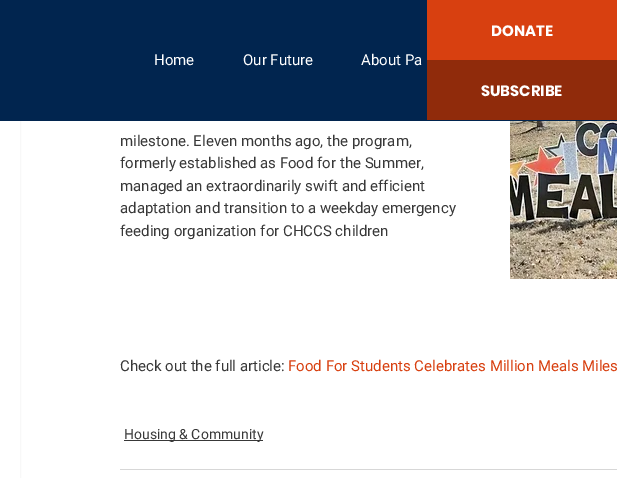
%!PS-Adobe-3.0
%%BoundingBox: 0 0 617 478
%%LanguageLevel: 3
%%Pages: 1
%%EndComments
%%BeginProlog
/setink { dup -16 bitshift 255 div exch dup -8 bitshift 255 and 255 div exch 255 and 255 div setrgbcolor } def
/usefont { [ exch dup neg 0 0 3 -1 roll 0 0 ] selectfont } def
/drawimage { 5 dict begin { /h /w /y /x /name } { exch def } forall
  gsave x y translate w h scale
  w h 8 [w 0 0 h 0 0] name (r) file false 3 colorimage grestore end } def
%%EndProlog
%%BeginSetup
<< /PageSize [617 478] >> setpagedevice
%%EndSetup
%%Page: 1 1
0 478 translate 1 -1 scale
4 setmiterlimit
16#FFFFFF setink
0 0 617 478 rectfill
16#F8F8F8 setink
20.5 -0.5 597 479 rectstroke
16#01254F setink
0 0 617 121 rectfill
/Roboto-Regular 15 usefont
16#FFFFFF setink
[
    [(Home) 154 65]
    [(Our Future) 243 65]
    [(About Pa) 361 65]
] { aload pop moveto show } forall
16#D84010 setink
427 0 190 60 rectfill
/Poppins-Bold 15 usefont
16#FFFFFF setink
491 36 moveto (DONATE) show
16#902B0B setink
427 60 190 60 rectfill
16#FFFFFF setink
481 96 moveto (SUBSCRIBE) show
/Roboto-Regular 15 usefont
16#383838 setink
[
    [(milestone. Eleven months ago, the program,) 120 146]
    [(formerly established as Food for the Summer,) 120 168]
    [(managed an extraordinarily swift and efficient) 120 191]
    [(adaptation and transition to a weekday emergency) 120 213]
    [(feeding organization for CHCCS children) 120 236]
] { aload pop moveto show } forall
(img1.raw) 510 121 107 158 drawimage
120 371 moveto (Check out the full article:) show
16#D84010 setink
288 371 moveto (Food For Students Celebrates Million Meals Miles) show
16#383838 setink
124 440 139 1 rectfill
/Roboto-Regular 14 usefont
124 439 moveto (Housing & Community) show
16#D7D7D7 setink
120 469 497 1 rectfill
showpage
%%EOF
